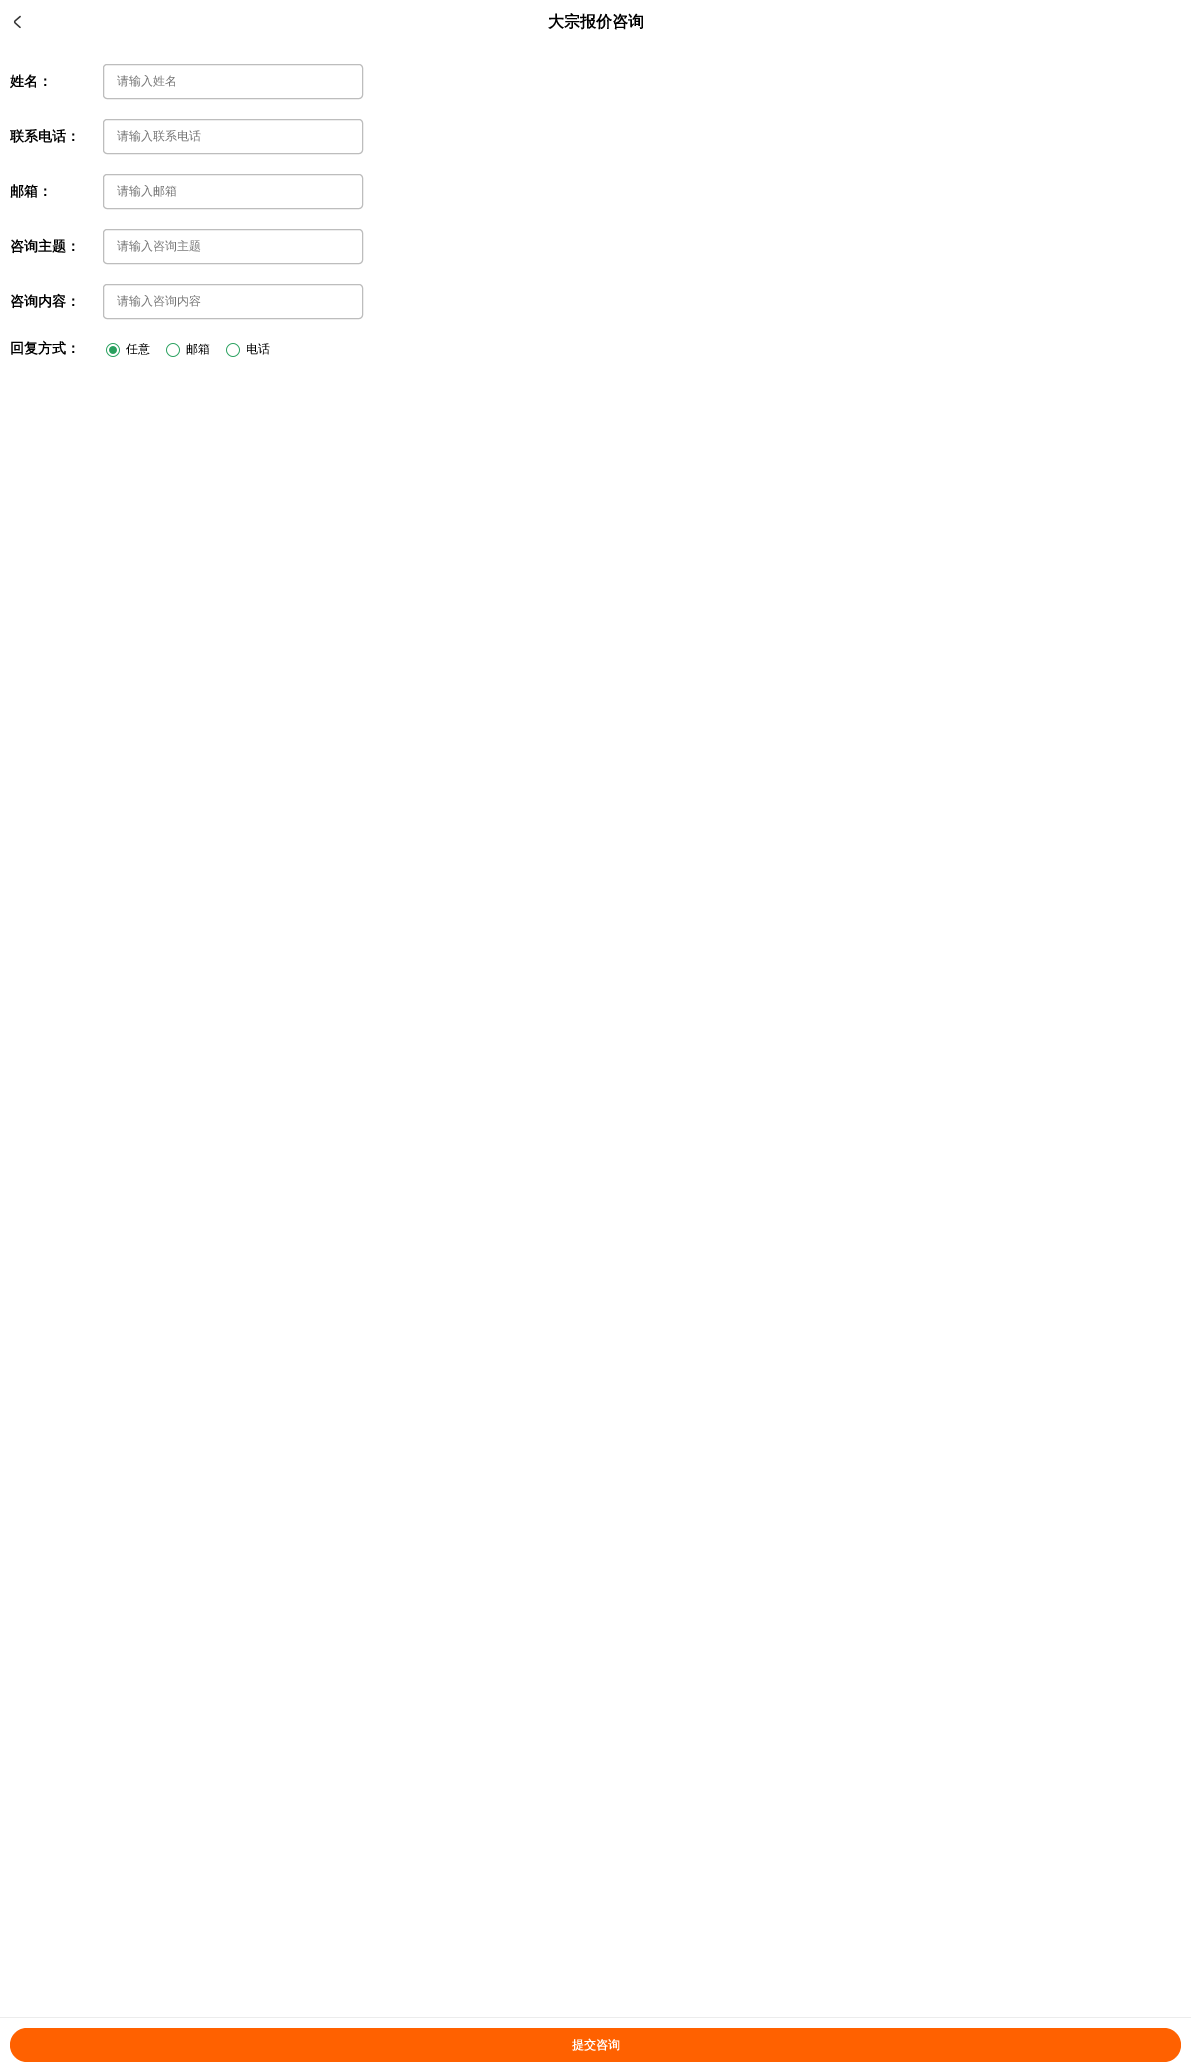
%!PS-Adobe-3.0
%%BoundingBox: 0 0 1191 2072
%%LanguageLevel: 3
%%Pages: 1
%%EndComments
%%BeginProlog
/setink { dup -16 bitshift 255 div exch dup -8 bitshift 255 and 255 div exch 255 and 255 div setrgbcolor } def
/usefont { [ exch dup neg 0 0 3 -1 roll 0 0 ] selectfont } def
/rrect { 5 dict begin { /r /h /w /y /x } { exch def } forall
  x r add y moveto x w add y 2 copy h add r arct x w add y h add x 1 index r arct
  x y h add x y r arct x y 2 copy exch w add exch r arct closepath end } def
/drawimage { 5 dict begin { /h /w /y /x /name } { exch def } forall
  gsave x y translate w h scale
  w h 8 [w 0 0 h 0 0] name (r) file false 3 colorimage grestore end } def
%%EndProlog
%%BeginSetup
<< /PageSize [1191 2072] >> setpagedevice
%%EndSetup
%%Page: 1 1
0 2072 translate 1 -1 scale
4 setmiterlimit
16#FFFFFF setink
0 0 1191 2072 rectfill
(img1.raw) 13 15 8 14 drawimage
/WenQuanYiZenHei-Bold 16 usefont
16#000000 setink
548 27 moveto (大宗报价咨询) show
/WenQuanYiZenHei-Bold 14 usefont
10 86 moveto (姓名：) show
16#BDBDBD setink
103.5 64.5 259 34 3.5 rrect stroke
/WenQuanYiZenHei-Medium 12 usefont
16#757575 setink
117 85 moveto (请输入姓名) show
/WenQuanYiZenHei-Bold 14 usefont
16#000000 setink
10 141 moveto (联系电话：) show
16#BDBDBD setink
103.5 119.5 259 34 3.5 rrect stroke
/WenQuanYiZenHei-Medium 12 usefont
16#757575 setink
117 140 moveto (请输入联系电话) show
/WenQuanYiZenHei-Bold 14 usefont
16#000000 setink
10 196 moveto (邮箱：) show
16#BDBDBD setink
103.5 174.5 259 34 3.5 rrect stroke
/WenQuanYiZenHei-Medium 12 usefont
16#757575 setink
117 195 moveto (请输入邮箱) show
/WenQuanYiZenHei-Bold 14 usefont
16#000000 setink
10 251 moveto (咨询主题：) show
16#BDBDBD setink
103.5 229.5 259 34 3.5 rrect stroke
/WenQuanYiZenHei-Medium 12 usefont
16#757575 setink
117 250 moveto (请输入咨询主题) show
/WenQuanYiZenHei-Bold 14 usefont
16#000000 setink
10 306 moveto (咨询内容：) show
16#BDBDBD setink
103.5 284.5 259 34 3.5 rrect stroke
/WenQuanYiZenHei-Medium 12 usefont
16#757575 setink
117 305 moveto (请输入咨询内容) show
/WenQuanYiZenHei-Bold 14 usefont
16#000000 setink
10 353 moveto (回复方式：) show
(img2.raw) 106 343 14 14 drawimage
/WenQuanYiZenHei-Medium 12 usefont
126 353 moveto (任意) show
(img3.raw) 166 343 14 14 drawimage
186 353 moveto (邮箱) show
(img3.raw) 226 343 14 14 drawimage
246 353 moveto (电话) show
16#ECECEC setink
0 2017 1191 1 rectfill
16#FF6100 setink
10 2028 1171 34 17 rrect fill
/WenQuanYiZenHei-Bold 12 usefont
16#FFFFFF setink
572 2049 moveto (提交咨询) show
showpage
%%EOF
